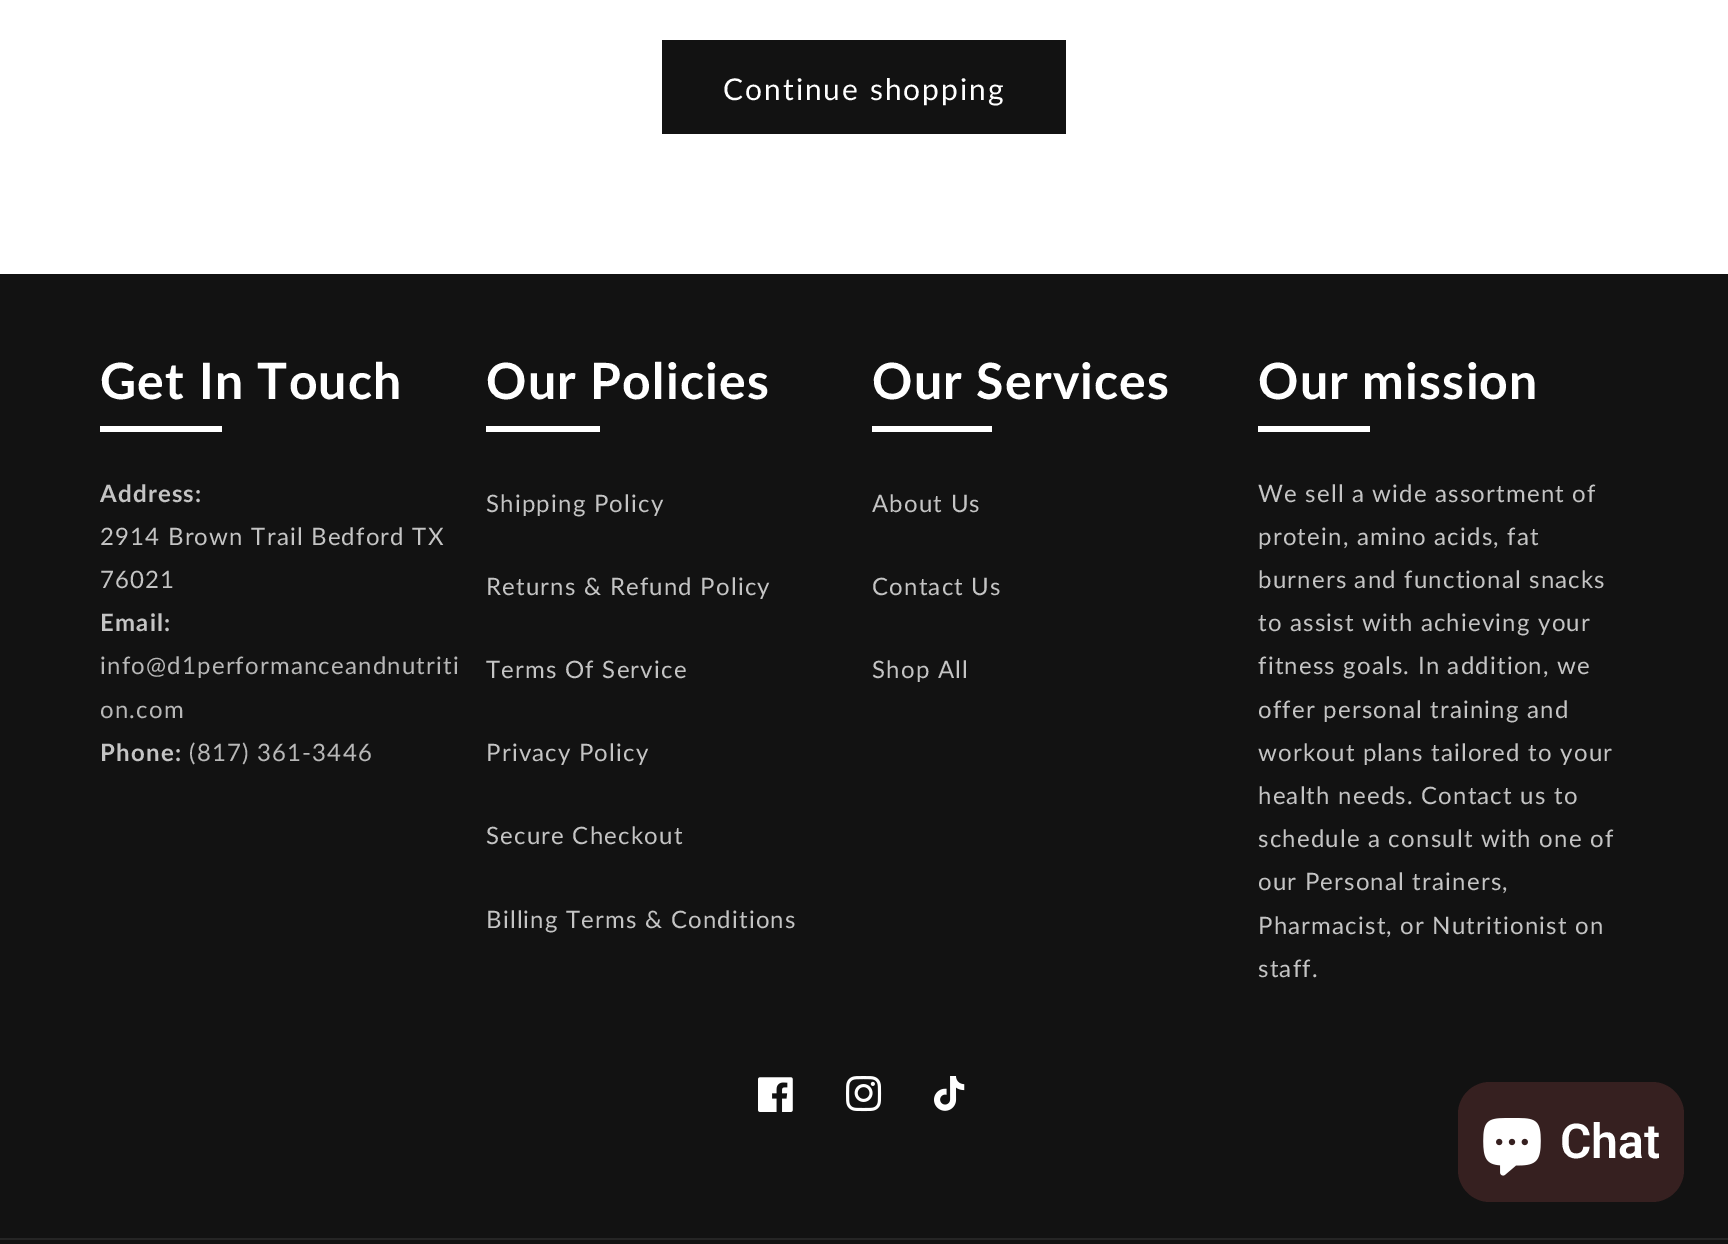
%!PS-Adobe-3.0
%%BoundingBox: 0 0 1728 1244
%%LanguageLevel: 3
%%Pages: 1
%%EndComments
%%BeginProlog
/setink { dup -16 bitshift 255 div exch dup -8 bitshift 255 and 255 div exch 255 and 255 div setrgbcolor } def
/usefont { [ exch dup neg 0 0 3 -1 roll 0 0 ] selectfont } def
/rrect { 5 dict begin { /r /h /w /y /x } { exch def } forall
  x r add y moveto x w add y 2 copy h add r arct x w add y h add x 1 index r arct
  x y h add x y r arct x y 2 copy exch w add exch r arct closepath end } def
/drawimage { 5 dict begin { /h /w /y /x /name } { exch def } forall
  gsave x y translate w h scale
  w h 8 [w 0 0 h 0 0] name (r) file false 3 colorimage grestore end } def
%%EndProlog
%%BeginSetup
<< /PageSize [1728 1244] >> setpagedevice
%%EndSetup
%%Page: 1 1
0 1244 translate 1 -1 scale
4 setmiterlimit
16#FFFFFF setink
0 0 1728 1244 rectfill
16#121212 setink
662 40 404 94 rectfill
/Lato-Regular 30 usefont
16#FFFFFF setink
723 100 moveto 2 0 (Continue shopping) ashow
16#121212 setink
0 274 1728 970 rectfill
/Lato-Bold 50 usefont
16#FFFFFF setink
100 399 moveto 1.2 0 (Get In Touch) ashow
100 426 122 6 rectfill
/Lato-Bold 24 usefont
16#C4C4C4 setink
100 502 moveto 1.2 0 (Address:) ashow
/Lato-Regular 24 usefont
100 545 moveto 1.2 0 (2914 Brown Trail Bedford TX) ashow
100 588 moveto 1.2 0 (76021) ashow
/Lato-Bold 24 usefont
100 631 moveto 1.2 0 (Email:) ashow
/Lato-Regular 24 usefont
16#B8B8B8 setink
100 674 moveto 1.2 0 (info@d1performanceandnutriti) ashow
100 718 moveto 1.2 0 (on.com) ashow
/Lato-Bold 24 usefont
16#C4C4C4 setink
100 761 moveto 1.2 0 (Phone:) ashow
/Lato-Regular 24 usefont
16#B8B8B8 setink
189 761 moveto 1.2 0 (\(817\) 361-3446) ashow
/Lato-Bold 50 usefont
16#FFFFFF setink
486 399 moveto 1.2 0 (Our Policies) ashow
486 426 114 6 rectfill
/Lato-Regular 24 usefont
16#C4C4C4 setink
486 512 moveto 1.2 0 (Shipping Policy) ashow
486 595 moveto 1.2 0 (Returns & Refund Policy) ashow
486 678 moveto 1.2 0 (Terms Of Service) ashow
486 761 moveto 1.2 0 (Privacy Policy) ashow
486 844 moveto 1.2 0 (Secure Checkout) ashow
486 928 moveto 1.2 0 (Billing Terms & Conditions) ashow
/Lato-Bold 50 usefont
16#FFFFFF setink
872 399 moveto 1.2 0 (Our Services) ashow
872 426 120 6 rectfill
/Lato-Regular 24 usefont
16#C4C4C4 setink
872 512 moveto 1.2 0 (About Us) ashow
872 595 moveto 1.2 0 (Contact Us) ashow
872 678 moveto 1.2 0 (Shop All) ashow
/Lato-Bold 50 usefont
16#FFFFFF setink
1258 399 moveto 1.2 0 (Our mission) ashow
1258 426 112 6 rectfill
/Lato-Regular 24 usefont
16#C4C4C4 setink
1258 502 moveto 1.2 0 (We sell a wide assortment of) ashow
1258 545 moveto 1.2 0 (protein, amino acids, fat) ashow
1258 588 moveto 1.2 0 (burners and functional snacks) ashow
1258 631 moveto 1.2 0 (to assist with achieving your) ashow
1258 674 moveto 1.2 0 (fitness goals. In addition, we) ashow
1258 718 moveto 1.2 0 (offer personal training and) ashow
1258 761 moveto 1.2 0 (workout plans tailored to your) ashow
1258 804 moveto 1.2 0 (health needs. Contact us to) ashow
1258 847 moveto 1.2 0 (schedule a consult with one of) ashow
1258 890 moveto 1.2 0 (our Personal trainers,) ashow
1258 934 moveto 1.2 0 (Pharmacist, or Nutritionist on) ashow
1258 977 moveto 1.2 0 (staff.) ashow
(img1.raw) 758 1077 35 35 drawimage
(img2.raw) 846 1076 36 36 drawimage
(img3.raw) 934 1076 31 35 drawimage
16#252525 setink
0 1238 1728 2 rectfill
16#362020 setink
1458 1082 226 120 32 rrect fill
(img4.raw) 1483 1118 58 58 drawimage
/Roboto-SemiBold 48 usefont
16#FFFFFF setink
1560 1158 moveto (Chat) show
showpage
%%EOF
